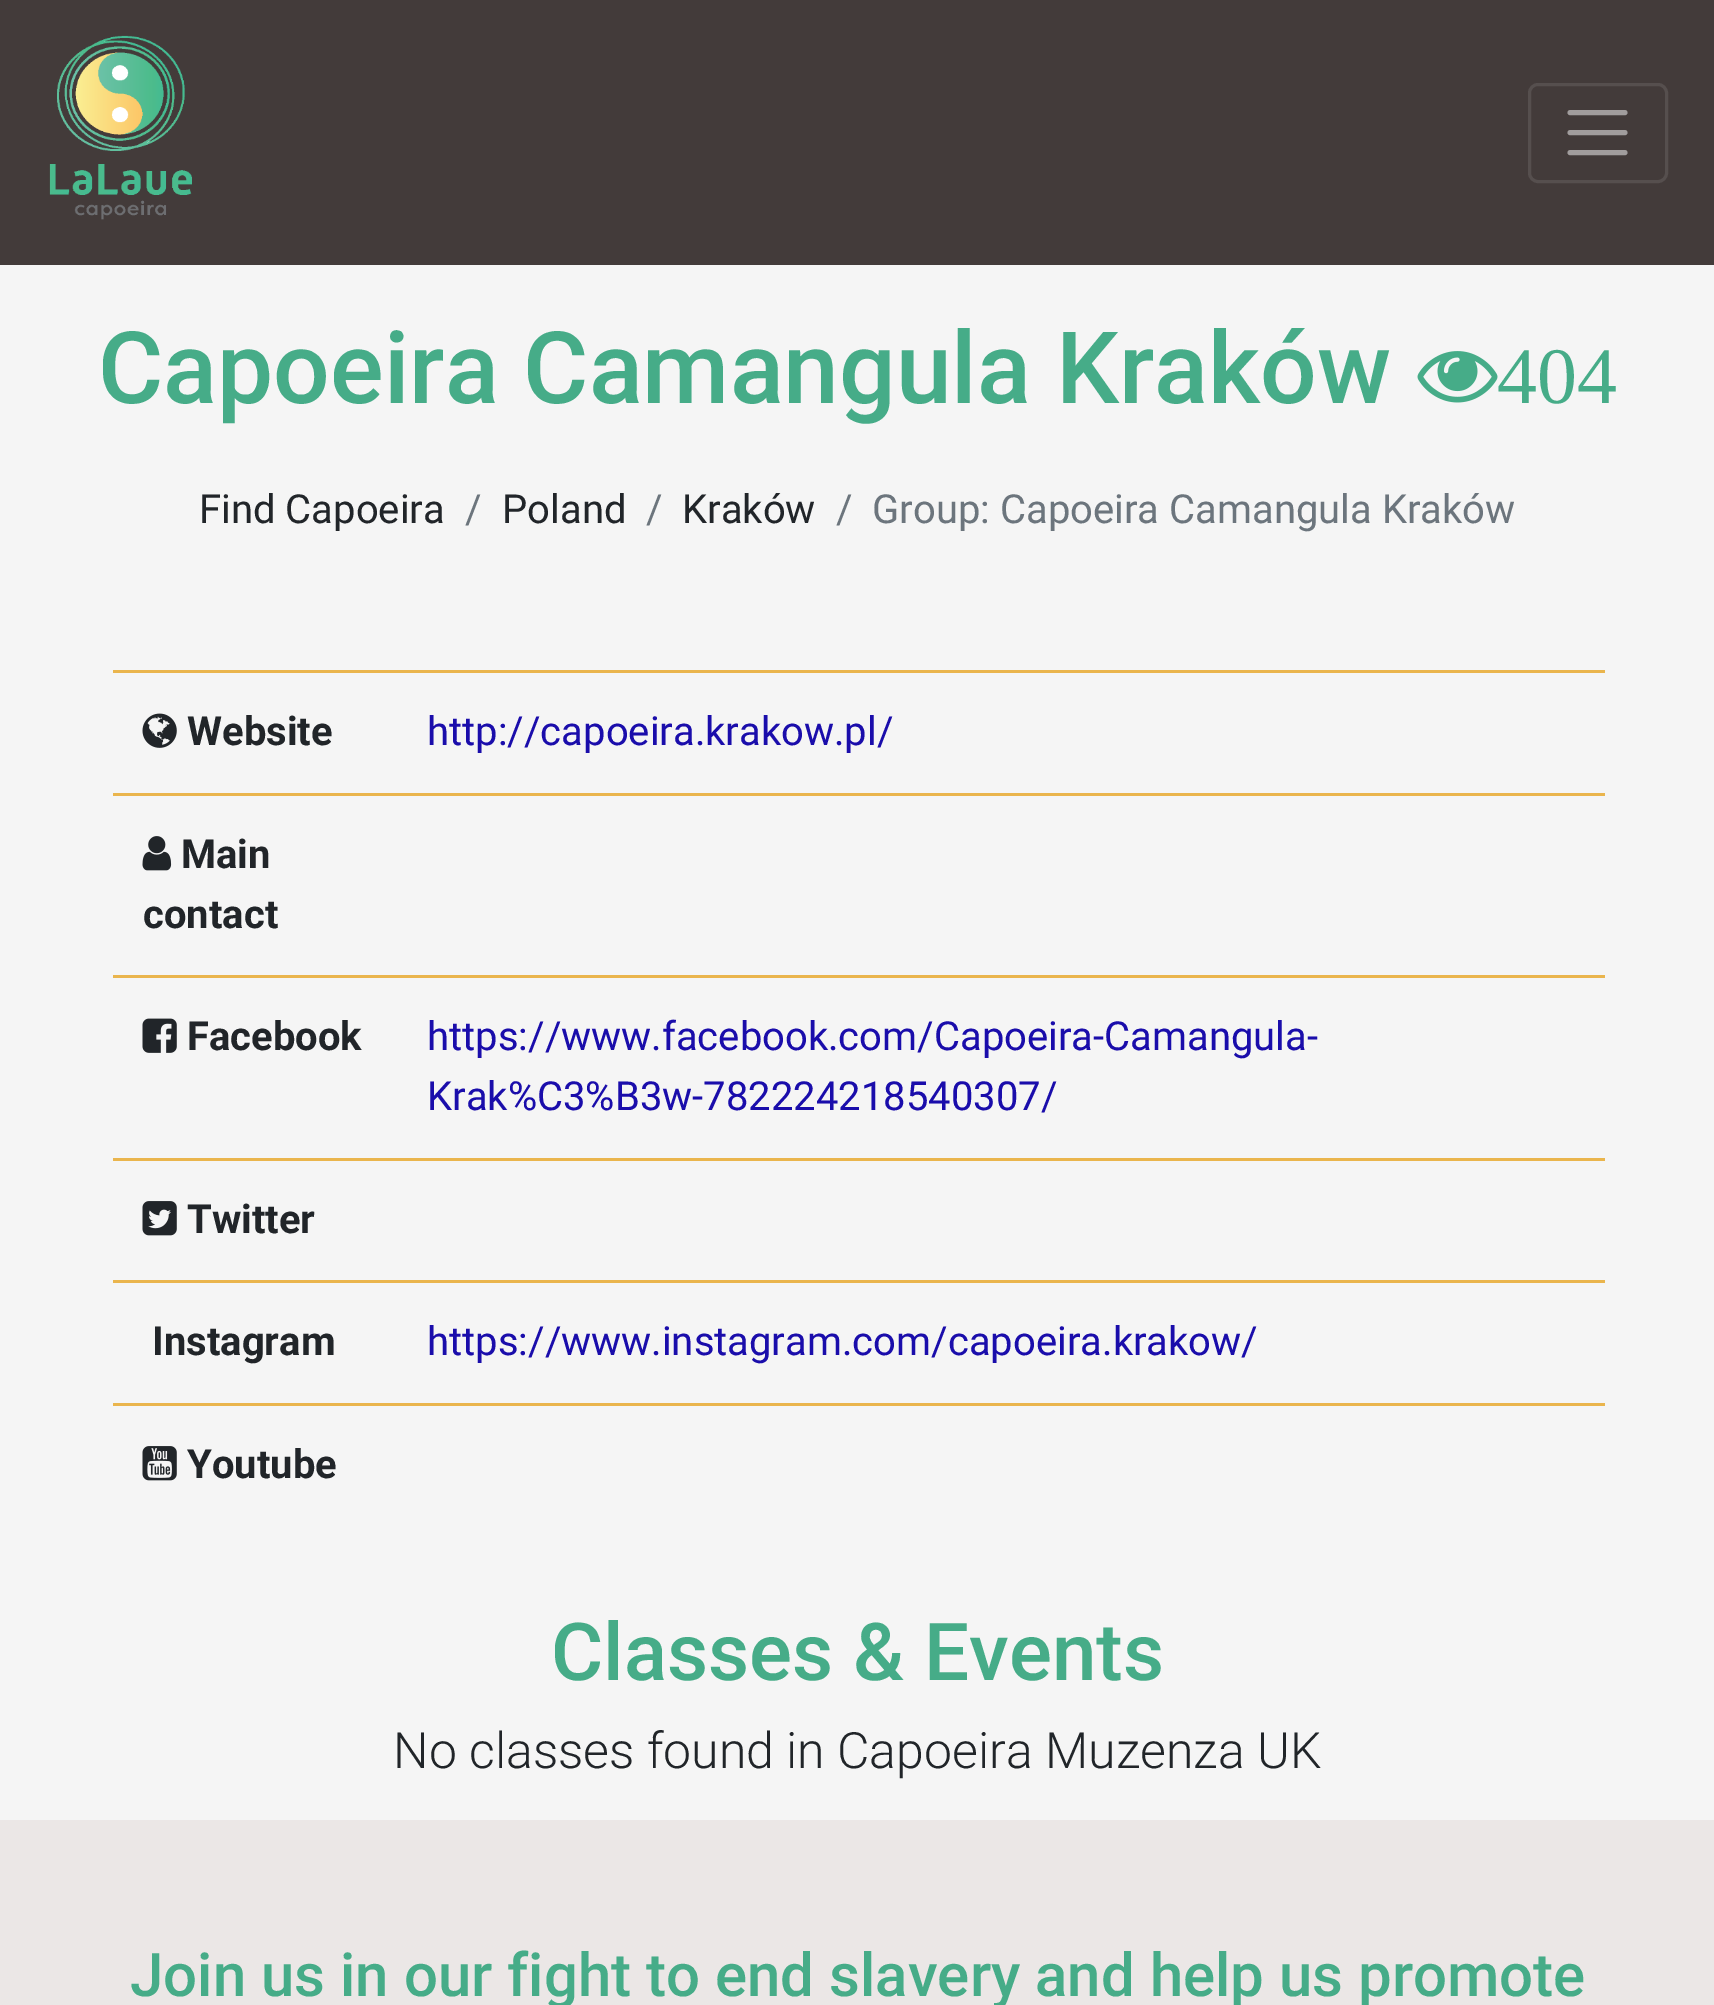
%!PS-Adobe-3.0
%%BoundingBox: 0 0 1714 2005
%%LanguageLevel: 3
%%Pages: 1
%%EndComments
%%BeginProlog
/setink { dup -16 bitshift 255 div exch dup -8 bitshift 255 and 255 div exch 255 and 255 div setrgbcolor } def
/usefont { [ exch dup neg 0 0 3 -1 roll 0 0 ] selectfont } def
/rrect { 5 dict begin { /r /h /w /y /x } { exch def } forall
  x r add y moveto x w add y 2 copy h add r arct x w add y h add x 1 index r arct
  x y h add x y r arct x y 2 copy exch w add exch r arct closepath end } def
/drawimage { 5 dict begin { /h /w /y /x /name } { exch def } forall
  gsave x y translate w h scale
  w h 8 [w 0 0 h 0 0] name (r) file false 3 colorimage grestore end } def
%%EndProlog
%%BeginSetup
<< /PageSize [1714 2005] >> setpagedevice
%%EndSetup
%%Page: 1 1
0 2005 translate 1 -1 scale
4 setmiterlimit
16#F5F5F5 setink
0 0 1714 2005 rectfill
16#433B3A setink
0 0 1714 265 rectfill
(img1.raw) 49 35 143 185 drawimage
16#564F4E setink
3 setlinewidth
1529.5 84.5 137 97 8.5 rrect stroke
16#A19D9D setink
5 setlinewidth
1 setlinecap
1570 112.5 moveto 1625 112.5 lineto 1570 132.5 moveto 1625 132.5 lineto 1570 152.5 moveto 1625 152.5 lineto stroke
/Roboto-Medium 100 usefont
16#46AC88 setink
98 403 moveto (Capoeira Camangula Kraków) show
(img2.raw) 1417 351 81 52 drawimage
/LiberationSerif-Regular 80 usefont
1497 403 moveto (404) show
/Roboto-Regular 40 usefont
16#212529 setink
199 523 moveto (Find Capoeira) show
16#6C757D setink
465 523 moveto (/) show
16#212529 setink
502 523 moveto (Poland) show
16#6C757D setink
646 523 moveto (/) show
16#212529 setink
682 523 moveto (Kraków) show
16#6C757D setink
836 523 moveto (/) show
872 523 moveto (Group: Capoeira Camangula Kraków) show
(img3.raw) 142 713 35 35 drawimage
/Roboto-Bold 40 usefont
16#212529 setink
187 745 moveto (Website) show
16#EAB54D setink
113 670 1492 3 rectfill
/Roboto-Regular 40 usefont
16#1A0DAB setink
427 745 moveto (http://capoeira.krakow.pl/) show
16#EAB54D setink
113 793 1492 3 rectfill
(img4.raw) 142 836 30 35 drawimage
/Roboto-Bold 40 usefont
16#212529 setink
181 868 moveto (Main) show
143 928 moveto (contact) show
(img5.raw) 142 1018 35 35 drawimage
187 1050 moveto (Facebook) show
16#EAB54D setink
113 975 1492 3 rectfill
/Roboto-Regular 40 usefont
16#1A0DAB setink
427 1050 moveto (https://www.facebook.com/Capoeira-Camangula-) show
427 1110 moveto (Krak%C3%B3w-782224218540307/) show
16#EAB54D setink
113 1158 1492 3 rectfill
(img6.raw) 142 1201 35 35 drawimage
/Roboto-Bold 40 usefont
16#212529 setink
187 1233 moveto (Twitter) show
152 1355 moveto (Instagram) show
16#EAB54D setink
113 1280 1492 3 rectfill
/Roboto-Regular 40 usefont
16#1A0DAB setink
427 1355 moveto (https://www.instagram.com/capoeira.krakow/) show
16#EAB54D setink
113 1403 1492 3 rectfill
(img7.raw) 142 1446 35 35 drawimage
/Roboto-Bold 40 usefont
16#212529 setink
187 1478 moveto (Youtube) show
/Roboto-Medium 80 usefont
16#46AC88 setink
551 1680 moveto (Classes & Events) show
/Roboto-Light 50 usefont
16#212529 setink
393 1768 moveto (No classes found in Capoeira Muzenza UK) show
16#EBE7E6 setink
0 1820 1714 185 rectfill
/Roboto-Medium 60 usefont
16#46AC88 setink
130 1996 moveto (Join us in our fight to end slavery and help us promote) show
showpage
%%EOF
